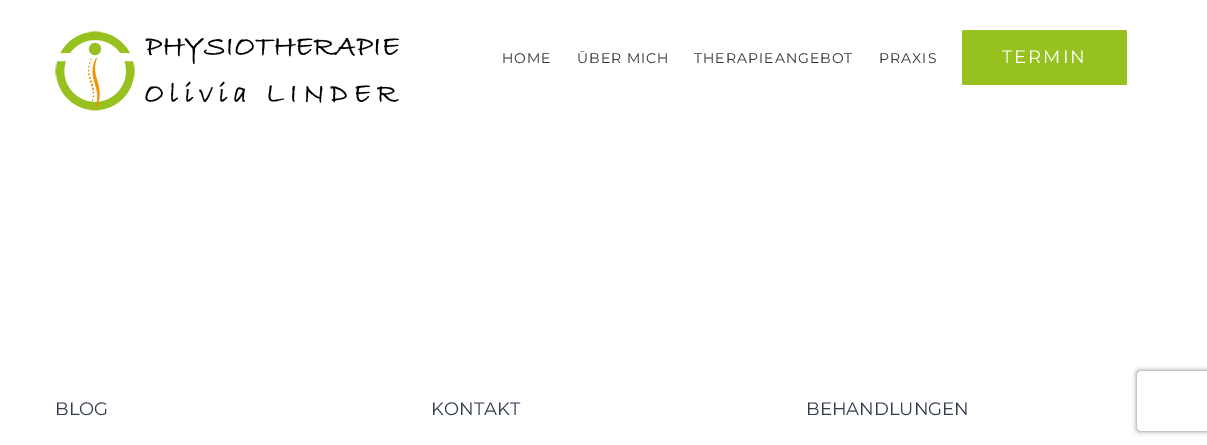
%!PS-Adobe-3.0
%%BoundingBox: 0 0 1207 445
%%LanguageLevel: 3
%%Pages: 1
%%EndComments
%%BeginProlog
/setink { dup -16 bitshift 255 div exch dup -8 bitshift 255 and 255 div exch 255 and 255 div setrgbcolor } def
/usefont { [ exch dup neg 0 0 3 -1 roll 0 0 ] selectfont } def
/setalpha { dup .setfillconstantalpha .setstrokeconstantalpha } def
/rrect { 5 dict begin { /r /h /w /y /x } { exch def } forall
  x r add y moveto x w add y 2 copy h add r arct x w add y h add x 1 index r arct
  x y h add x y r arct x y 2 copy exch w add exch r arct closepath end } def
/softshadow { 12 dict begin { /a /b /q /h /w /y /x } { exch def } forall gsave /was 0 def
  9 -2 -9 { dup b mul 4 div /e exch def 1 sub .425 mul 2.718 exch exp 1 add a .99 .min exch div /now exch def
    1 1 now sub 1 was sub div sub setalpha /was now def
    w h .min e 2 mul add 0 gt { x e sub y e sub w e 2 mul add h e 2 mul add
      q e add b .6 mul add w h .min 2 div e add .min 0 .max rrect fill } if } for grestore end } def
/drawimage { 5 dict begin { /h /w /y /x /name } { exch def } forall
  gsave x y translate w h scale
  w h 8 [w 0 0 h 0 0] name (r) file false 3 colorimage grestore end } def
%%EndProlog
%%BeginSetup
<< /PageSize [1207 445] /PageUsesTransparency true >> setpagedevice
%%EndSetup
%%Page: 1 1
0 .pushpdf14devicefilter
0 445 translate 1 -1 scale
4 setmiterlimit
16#FFFFFF setink
0 0 1207 445 rectfill
(img1.raw) 55 31 344 80 drawimage
/Montserrat-Thin 14 usefont
16#333333 setink
502 63 moveto 1 0 (HOME) ashow
577 63 moveto 1 0 (ÜBER MICH) ashow
694 63 moveto 1 0 (THERAPIEANGEBOT) ashow
879 63 moveto 1 0 (PRAXIS) ashow
16#96C11F setink
962 30 165 55 2 rrect fill
/Montserrat-Thin 18 usefont
16#FFFFFF setink
1002 63 moveto 2 0 (TERMIN) ashow
16#333C4E setink
[
    [(BLOG) 55 415]
    [(KONTAKT) 431 415]
    [(BEHANDLUNGEN) 806 415]
] { aload pop moveto show } forall
gsave
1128 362 moveto 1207 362 lineto 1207 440 lineto 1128 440 lineto closepath 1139 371 moveto 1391 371 lineto 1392 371 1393 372 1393 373 curveto 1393 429 lineto 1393 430 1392 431 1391 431 curveto 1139 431 lineto 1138 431 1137 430 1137 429 curveto 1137 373 lineto 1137 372 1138 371 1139 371 curveto closepath eoclip newpath
16#808080 setink
1137 371 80 60 2 2.5 1 softshadow
grestore
.poppdf14devicefilter showpage
%%EOF
